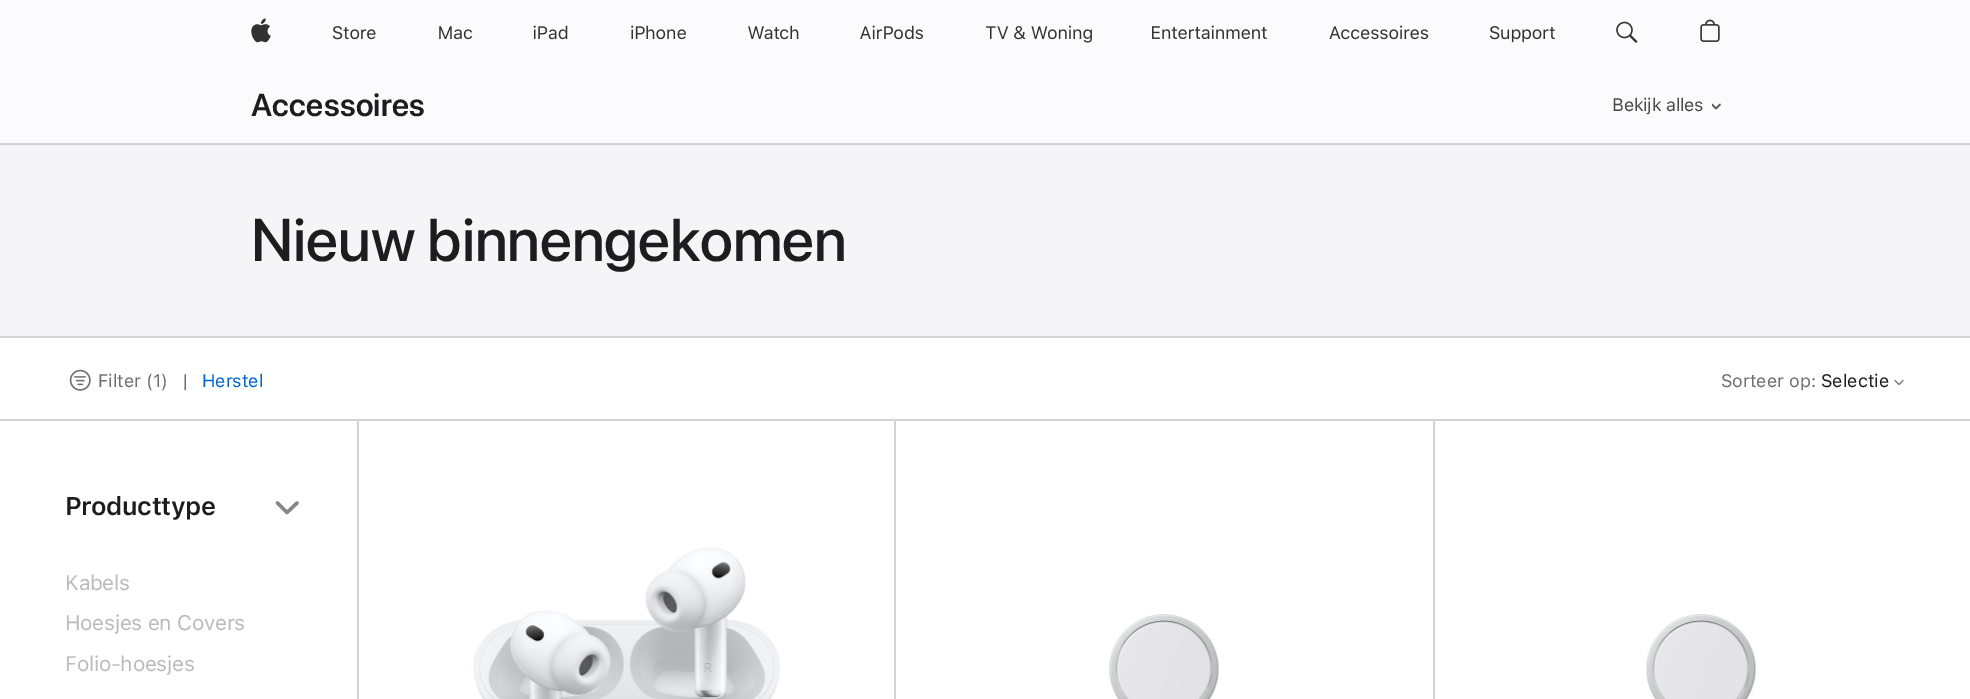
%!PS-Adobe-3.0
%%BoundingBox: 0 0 1970 699
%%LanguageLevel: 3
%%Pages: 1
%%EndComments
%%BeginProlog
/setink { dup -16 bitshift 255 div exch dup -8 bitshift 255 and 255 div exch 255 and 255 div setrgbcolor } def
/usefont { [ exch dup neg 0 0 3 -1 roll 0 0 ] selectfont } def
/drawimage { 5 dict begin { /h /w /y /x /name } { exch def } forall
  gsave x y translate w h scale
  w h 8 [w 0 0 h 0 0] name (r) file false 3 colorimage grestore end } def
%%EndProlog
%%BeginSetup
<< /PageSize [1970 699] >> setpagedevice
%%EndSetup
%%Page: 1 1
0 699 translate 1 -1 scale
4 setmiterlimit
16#FFFFFF setink
0 0 1970 699 rectfill
16#FBFBFD setink
0 0 1970 143 rectfill
(img1.raw) 251 18 20 25 drawimage
(img2.raw) 332 26 44 14 drawimage
(img3.raw) 439 26 34 14 drawimage
(img4.raw) 533 25 35 15 drawimage
(img5.raw) 631 25 55 15 drawimage
(img6.raw) 748 25 51 15 drawimage
(img7.raw) 860 25 63 15 drawimage
(img8.raw) 986 25 106 18 drawimage
(img9.raw) 1152 25 115 15 drawimage
(img10.raw) 1329 25 100 15 drawimage
(img11.raw) 1490 26 65 17 drawimage
(img12.raw) 1616 21 22 22 drawimage
(img13.raw) 1700 19 20 23 drawimage
16#D3D3D5 setink
0 143 1970 1 rectfill
/SFProDisplay-SemiBold 31.5 usefont
16#1D1D1F setink
251 116 moveto 0.3 0 (Accessoires) ashow
/SFProText-Regular 18 usefont
16#49494B setink
1612 111 moveto -0.25 0 (Bekijk alles) ashow
gsave
1712 99 9 11 rectclip
16#5A5A5B setink
1.7 setlinewidth
1 setlinecap
1 setlinejoin
1720 104.5 moveto 1716 108.5 lineto 1712 104.5 lineto stroke
grestore
[
    [0 145 1970 191 16#F5F5F7]
    [0 144 1970 1 16#CECECF]
    [0 336 1970 2 16#D2D2D7]
] { aload pop setink rectfill } forall
/SFProDisplay-Medium 60 usefont
16#1D1D1F setink
251 261 moveto (Nieuw binnengekomen) show
(img14.raw) 69 369 22 22 drawimage
/SFProText-Regular 18 usefont
16#6E6E73 setink
98 387 moveto (Filter \(1\)) show
183 387 moveto -0.25 0 (|) ashow
16#0066CC setink
202 387 moveto (Herstel) show
16#6E6E73 setink
1721 387 moveto (Sorteer op:) show
16#1D1D1F setink
1821 387 moveto (Selectie) show
(img15.raw) 1894 379 10 7 drawimage
[
    [357 419 2 280 16#D2D2D7]
    [894 419 2 280 16#D2D2D7]
    [1433 419 2 280 16#D2D2D7]
    [0 419 1970 2 16#D2D2D7]
] { aload pop setink rectfill } forall
/SFProText-SemiBold 25.5 usefont
16#1D1D1F setink
65 515 moveto -0.5 0 (Producttype) ashow
16#86868B setink
3.4 setlinewidth
1 setlinecap
1 setlinejoin
297 503 moveto 287 512.5 lineto 277.5 503 lineto stroke
/SFProText-Regular 21 usefont
16#BBBBBC setink
65 590 moveto -0.3 0 (Kabels) ashow
65 630 moveto -0.3 0 (Hoesjes en Covers) ashow
65 671 moveto -0.3 0 (Folio-hoesjes) ashow
(img16.raw) 473 547 307 152 drawimage
(img17.raw) 1109 614 111 85 drawimage
(img17.raw) 1646 614 111 85 drawimage
showpage
%%EOF
